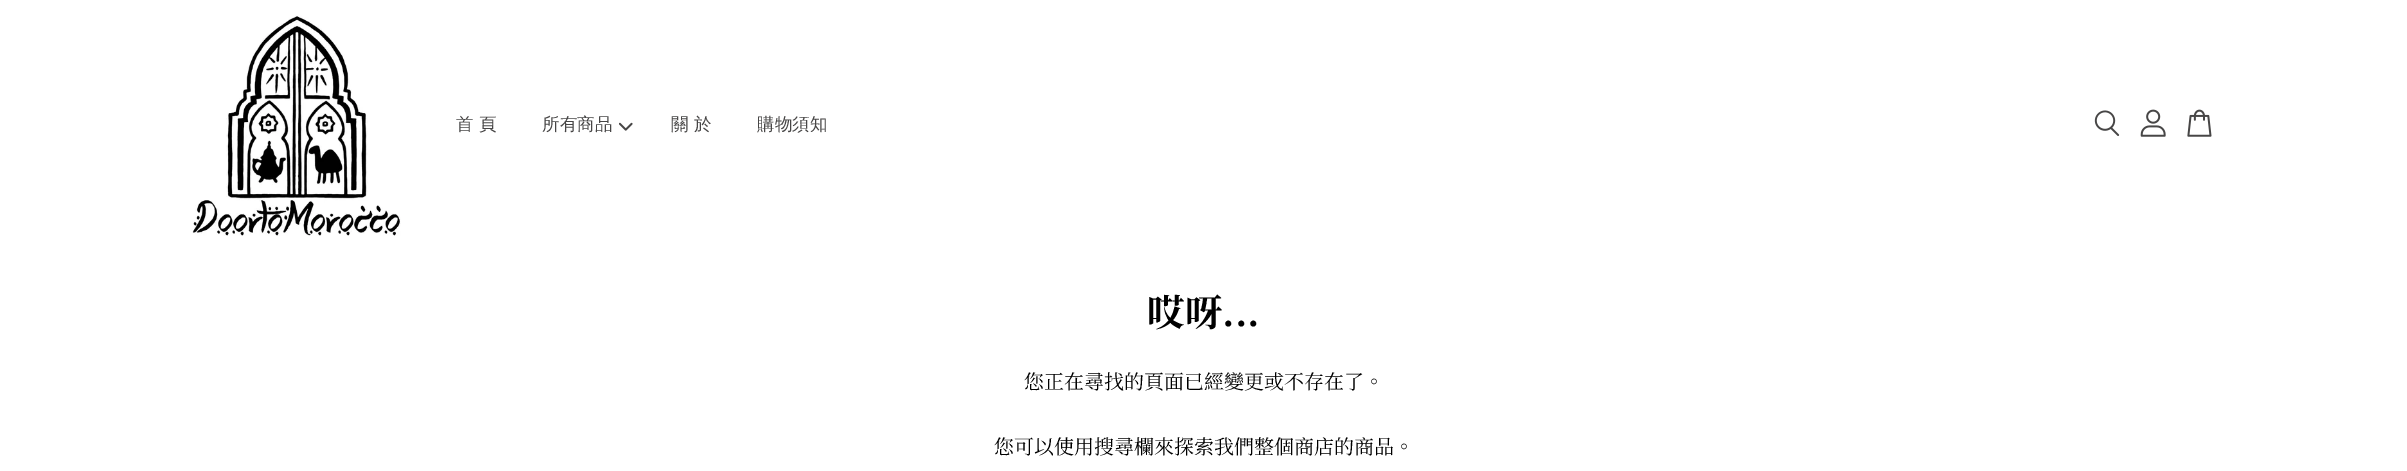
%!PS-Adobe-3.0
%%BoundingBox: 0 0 2407 471
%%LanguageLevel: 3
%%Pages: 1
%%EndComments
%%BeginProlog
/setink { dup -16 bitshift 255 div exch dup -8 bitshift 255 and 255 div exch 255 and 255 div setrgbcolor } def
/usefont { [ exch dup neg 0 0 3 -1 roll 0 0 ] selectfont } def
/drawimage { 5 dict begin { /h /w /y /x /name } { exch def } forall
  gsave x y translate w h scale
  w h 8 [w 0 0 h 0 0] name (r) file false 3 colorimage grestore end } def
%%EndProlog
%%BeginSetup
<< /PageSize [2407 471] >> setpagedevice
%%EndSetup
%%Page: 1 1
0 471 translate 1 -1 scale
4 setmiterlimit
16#FFFFFF setink
0 0 2407 471 rectfill
(img1.raw) 192 15 209 221 drawimage
/WenQuanYiZenHei-Medium 17.5 usefont
16#474646 setink
456 130 moveto (首 頁) show
542 130 moveto (所有商品) show
(img2.raw) 619 122 14 9 drawimage
671 130 moveto (關 於) show
757 130 moveto (購物須知) show
(img3.raw) 2094 110 26 26 drawimage
(img4.raw) 2140 109 26 28 drawimage
(img5.raw) 2187 109 25 28 drawimage
/NotoSerifTC-Bold 37.5 usefont
16#000000 setink
1147 326 moveto (哎呀...) show
/NotoSerifTC-Regular 20 usefont
1024 389 moveto (您正在尋找的頁面已經變更或不存在了。) show
994 454 moveto (您可以使用搜尋欄來探索我們整個商店的商品。) show
showpage
%%EOF
